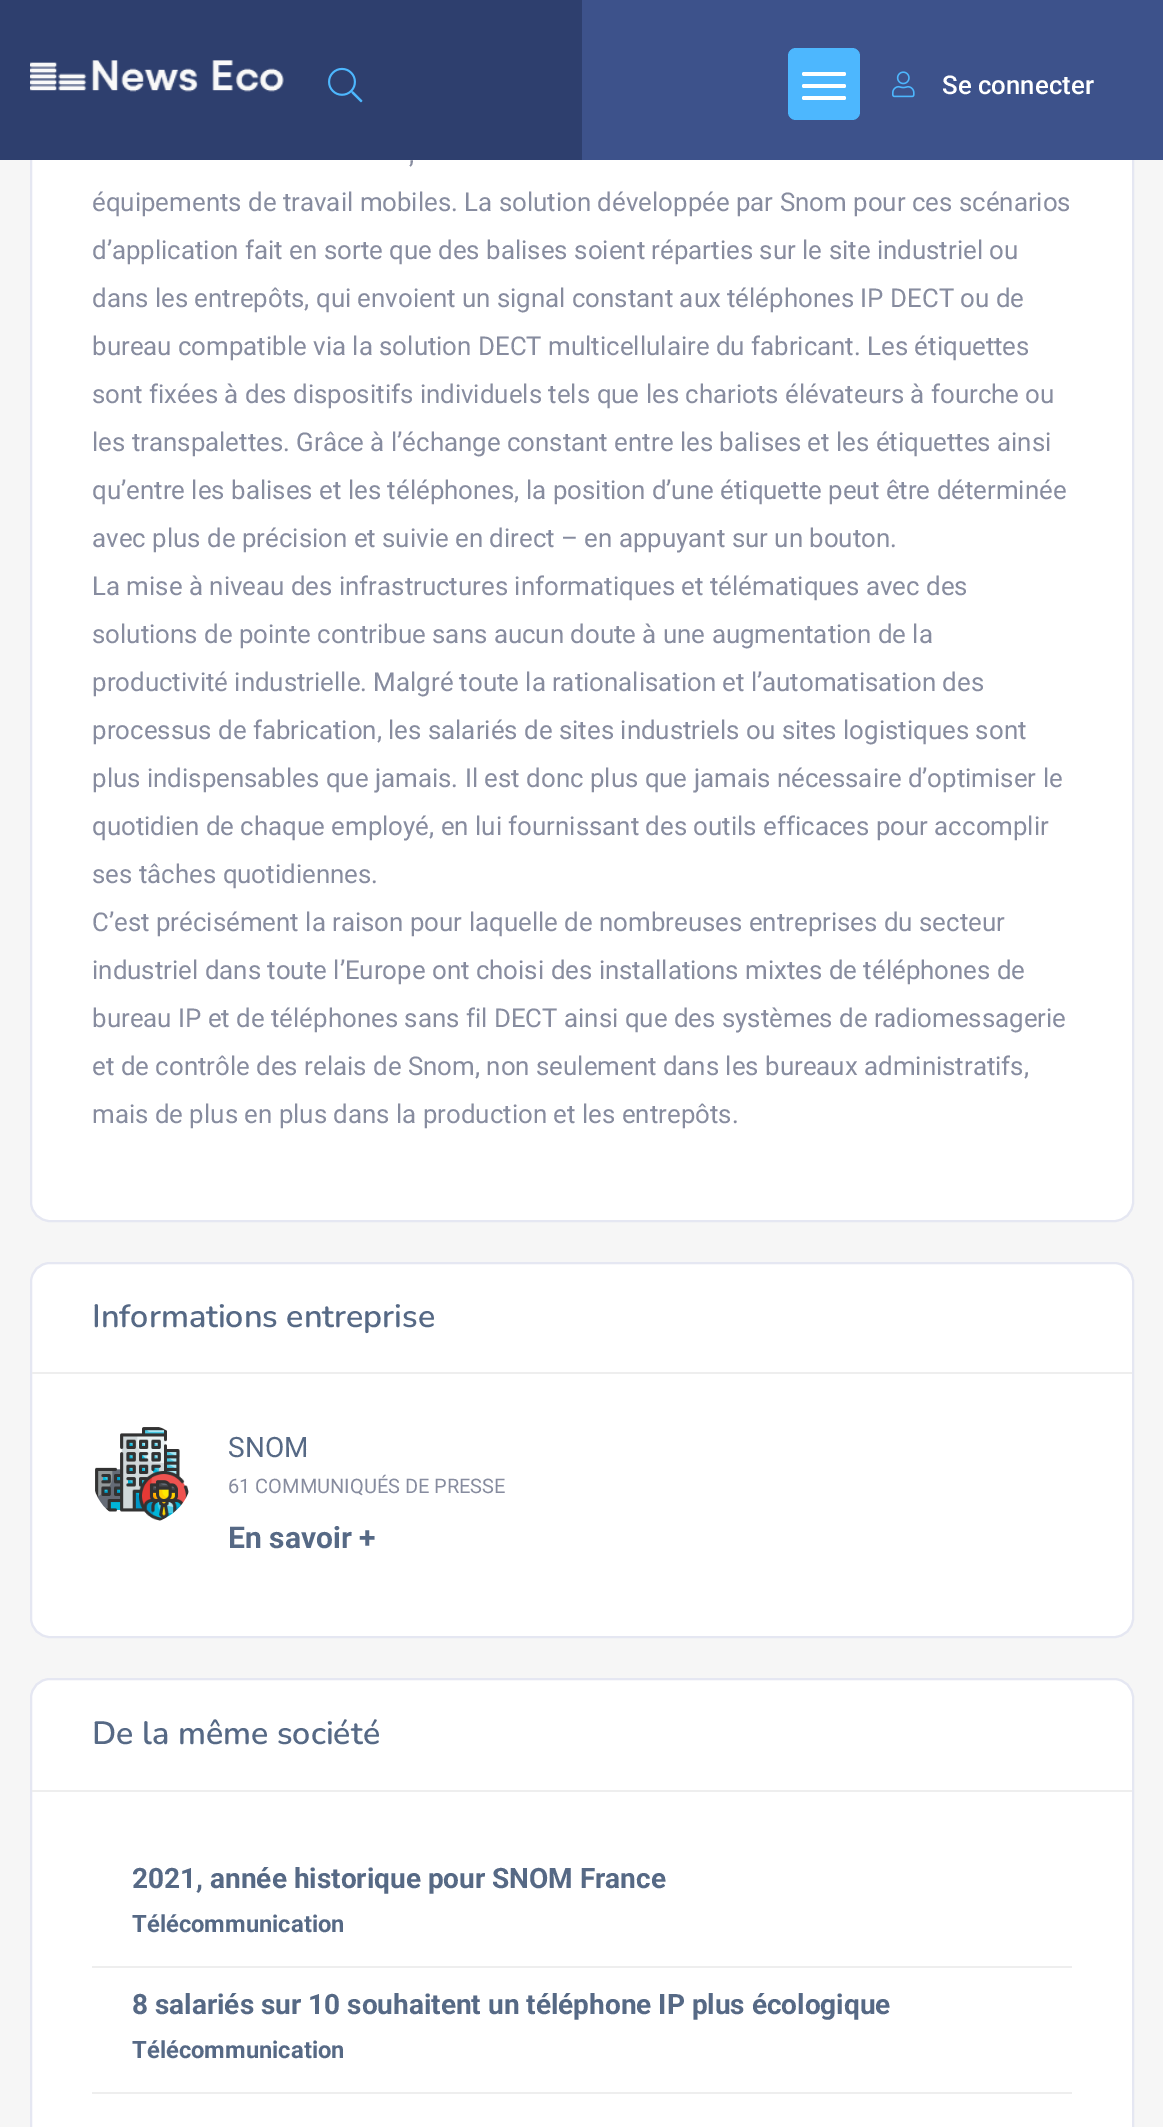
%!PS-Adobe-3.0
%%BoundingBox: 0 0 1163 2127
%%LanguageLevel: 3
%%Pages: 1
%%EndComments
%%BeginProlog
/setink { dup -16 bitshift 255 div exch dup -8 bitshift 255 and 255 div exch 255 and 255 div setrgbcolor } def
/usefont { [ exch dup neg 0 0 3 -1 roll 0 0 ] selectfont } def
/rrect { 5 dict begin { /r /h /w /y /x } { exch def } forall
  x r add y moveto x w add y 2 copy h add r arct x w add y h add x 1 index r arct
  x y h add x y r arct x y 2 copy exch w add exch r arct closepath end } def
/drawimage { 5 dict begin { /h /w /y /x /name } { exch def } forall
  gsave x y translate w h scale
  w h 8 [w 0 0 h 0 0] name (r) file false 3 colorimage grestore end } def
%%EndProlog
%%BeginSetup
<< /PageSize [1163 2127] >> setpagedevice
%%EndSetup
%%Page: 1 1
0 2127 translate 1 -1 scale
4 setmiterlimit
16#F6F6F6 setink
0 0 1163 2127 rectfill
16#FFFFFF setink
31 -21 1102 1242 19 rrect gsave fill grestore
16#E5E7F2 setink
2 setlinewidth
stroke
16#2E3F6E setink
0 0 582 160 rectfill
16#3D528B setink
582 0 581 160 rectfill
(img1.raw) 30 60 254 32 drawimage
(img2.raw) 328 67 35 36 drawimage
16#4DB7FE setink
788 48 72 72 8 rrect fill
16#FFFFFF setink
802 72 44 4 2 rrect fill
802 84 44 4 2 rrect fill
802 96 44 4 2 rrect fill
(img3.raw) 892 71 23 27 drawimage
/Roboto-Medium 25.85 usefont
942 94 moveto (Se connecter) show
/Roboto-Regular 25.85 usefont
16#878C9F setink
[
    [(,) 409 163]
    [(équipements de travail mobiles. La solution développée par Snom pour ces scénarios) 92 211]
    [(d’application fait en sorte que des balises soient réparties sur le site industriel ou) 92 259]
    [(dans les entrepôts, qui envoient un signal constant aux téléphones IP DECT ou de) 92 307]
    [(bureau compatible via la solution DECT multicellulaire du fabricant. Les étiquettes) 92 355]
    [(sont fixées à des dispositifs individuels tels que les chariots élévateurs à fourche ou) 92 403]
    [(les transpalettes. Grâce à l’échange constant entre les balises et les étiquettes ainsi) 92 451]
    [(qu’entre les balises et les téléphones, la position d’une étiquette peut être déterminée) 92 499]
    [(avec plus de précision et suivie en direct – en appuyant sur un bouton.) 92 547]
    [(La mise à niveau des infrastructures informatiques et télématiques avec des) 92 595]
    [(solutions de pointe contribue sans aucun doute à une augmentation de la) 92 643]
] { aload pop moveto show } forall
92 691 moveto -0.25 0 32 (productivité industrielle. Malgré toute la rationalisation et l’automatisation des) widthshow
[
    [(processus de fabrication, les salariés de sites industriels ou sites logistiques sont) 92 739]
    [(plus indispensables que jamais. Il est donc plus que jamais nécessaire d’optimiser le) 92 787]
    [(quotidien de chaque employé, en lui fournissant des outils efficaces pour accomplir) 92 835]
    [(ses tâches quotidiennes.) 92 883]
    [(C’est précisément la raison pour laquelle de nombreuses entreprises du secteur) 92 931]
    [(industriel dans toute l’Europe ont choisi des installations mixtes de téléphones de) 92 979]
    [(bureau IP et de téléphones sans fil DECT ainsi que des systèmes de radiomessagerie) 92 1027]
    [(et de contrôle des relais de Snom, non seulement dans les bureaux administratifs,) 92 1075]
    [(mais de plus en plus dans la production et les entrepôts.) 92 1123]
] { aload pop moveto show } forall
16#FFFFFF setink
31 1263 1102 374 19 rrect gsave fill grestore
16#E5E7F2 setink
stroke
16#EEEEEE setink
32 1372 1100 2 rectfill
/Nunito-SemiBold 32.25 usefont
16#566985 setink
92 1327 moveto (Informations entreprise) show
(img4.raw) 95 1427 94 94 drawimage
/Roboto-Regular 28 usefont
228 1457 moveto (SNOM) show
/Roboto-Regular 20 usefont
16#878C9F setink
228 1493 moveto (61 COMMUNIQUÉS DE PRESSE) show
/Roboto-Bold 30 usefont
16#566985 setink
228 1548 moveto (En savoir +) show
16#FFFFFF setink
31 1679 1102 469 19 rrect gsave fill grestore
16#E5E7F2 setink
stroke
16#EEEEEE setink
32 1790 1100 2 rectfill
/Nunito-SemiBold 32.25 usefont
16#566985 setink
92 1744 moveto (De la même société) show
16#EEEEEE setink
92 1966 980 2 rectfill
/Roboto-Bold 28 usefont
16#566985 setink
132 1888 moveto (2021, année historique pour SNOM France) show
/Roboto-Bold 23.75 usefont
132 1932 moveto (Télécommunication) show
16#EEEEEE setink
92 2092 980 2 rectfill
/Roboto-Bold 28 usefont
16#566985 setink
132 2014 moveto (8 salariés sur 10 souhaitent un téléphone IP plus écologique) show
/Roboto-Bold 23.75 usefont
132 2058 moveto (Télécommunication) show
showpage
%%EOF
